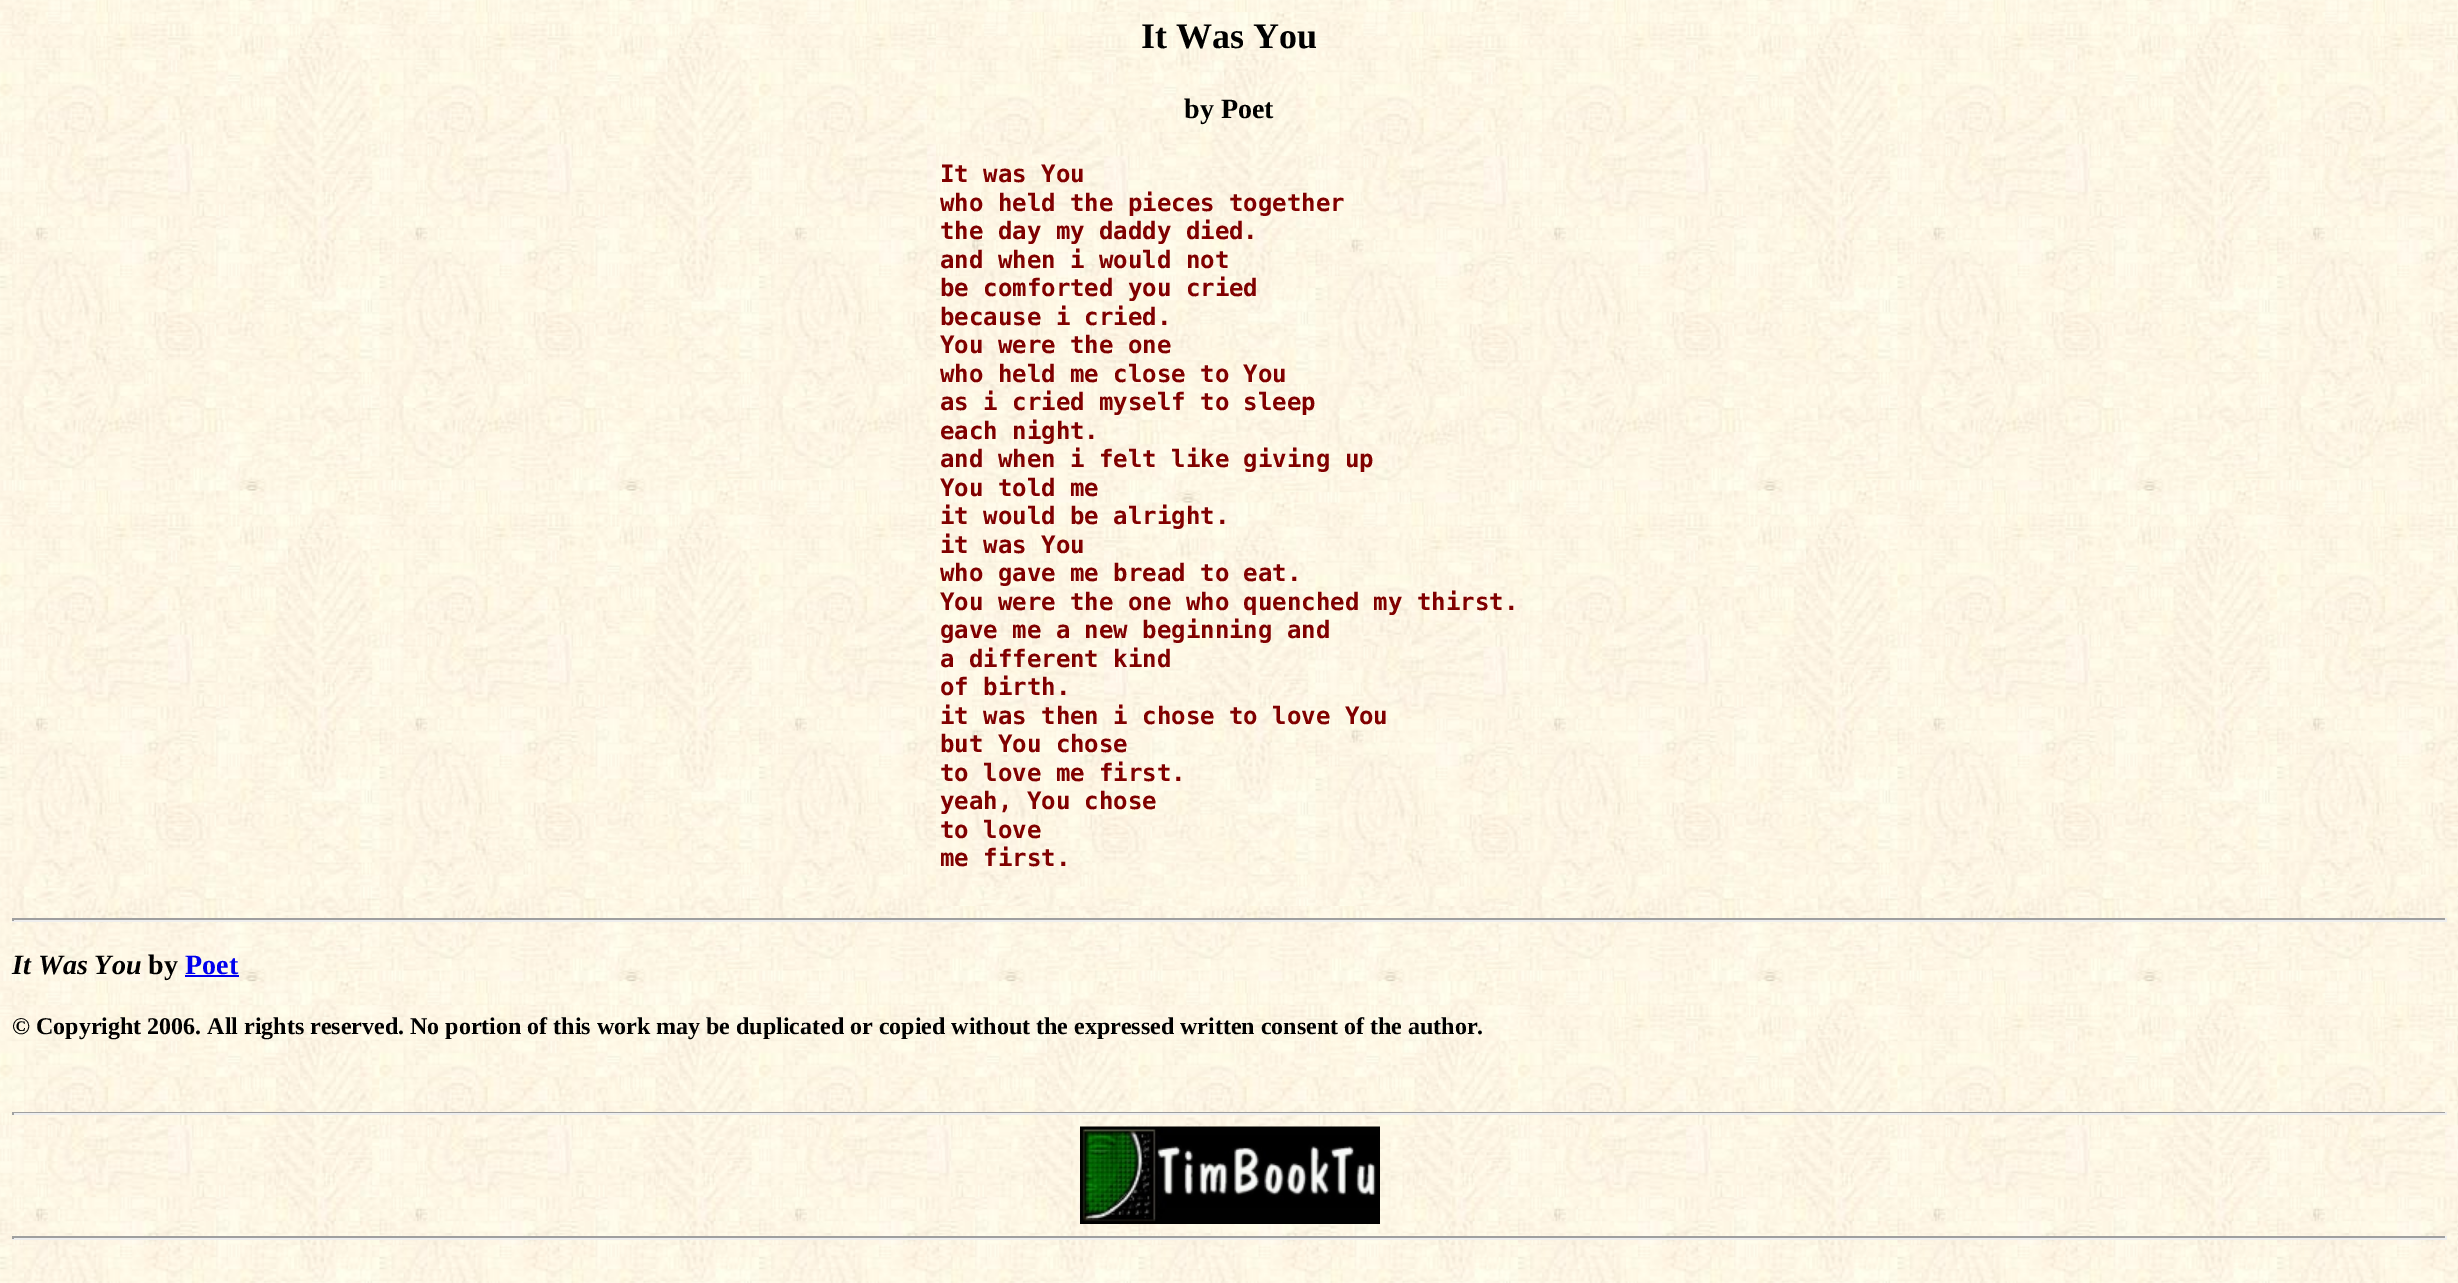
%!PS-Adobe-3.0
%%BoundingBox: 0 0 2458 1283
%%LanguageLevel: 3
%%Pages: 1
%%EndComments
%%BeginProlog
/setink { dup -16 bitshift 255 div exch dup -8 bitshift 255 and 255 div exch 255 and 255 div setrgbcolor } def
/usefont { [ exch dup neg 0 0 3 -1 roll 0 0 ] selectfont } def
/drawimage { 5 dict begin { /h /w /y /x /name } { exch def } forall
  gsave x y translate w h scale
  w h 8 [w 0 0 h 0 0] name (r) file false 3 colorimage grestore end } def
%%EndProlog
%%BeginSetup
<< /PageSize [2458 1283] >> setpagedevice
%%EndSetup
%%Page: 1 1
0 1283 translate 1 -1 scale
4 setmiterlimit
16#FFFFFF setink
0 0 2458 1283 rectfill
(img1.raw) 0 0 2458 1283 drawimage
(img2.raw) 936 12 587 894 drawimage
/LiberationSerif-Bold 36 usefont
16#000000 setink
1141 48 moveto (It Was You) show
/LiberationSerif-Bold 28 usefont
1184 118 moveto (by Poet) show
/DejaVuSansMono-Bold 24 usefont
16#800000 setink
[
    [(It was You) 940 182]
    [(who held the pieces together) 940 211]
    [(the day my daddy died.) 940 239]
    [(and when i would not) 940 268]
    [(be comforted you cried) 940 296]
    [(because i cried.) 940 325]
    [(You were the one) 940 353]
    [(who held me close to You) 940 382]
    [(as i cried myself to sleep) 940 410]
    [(each night.) 940 439]
    [(and when i felt like giving up) 940 467]
    [(You told me) 940 496]
    [(it would be alright.) 940 524]
    [(it was You) 940 553]
    [(who gave me bread to eat.) 940 581]
    [(You were the one who quenched my thirst.) 940 610]
    [(gave me a new beginning and) 940 638]
    [(a different kind) 940 667]
    [(of birth.) 940 695]
    [(it was then i chose to love You) 940 724]
    [(but You chose) 940 752]
    [(to love me first.) 940 781]
    [(yeah, You chose) 940 809]
    [(to love) 940 838]
    [(me first.) 940 866]
] { aload pop moveto show } forall
[
    [12 918 2435 2 16#9F9F9F]
    [2445 918 2 3 16#EEEEEE]
    [12 920 2435 2 16#EEEEEE]
    [12 918 2 3 16#9F9F9F]
] { aload pop setink rectfill } forall
/LiberationSerif-BoldItalic 28 usefont
16#000000 setink
12 974 moveto (It Was You) show
/LiberationSerif-Bold 28 usefont
148 974 moveto (by) show
16#0000EE setink
185 974 moveto (Poet) show
185 975 54 2 rectfill
/LiberationSerif-Bold 24 usefont
16#000000 setink
12 1034 moveto (© Copyright 2006. All rights reserved. No portion of this work may be duplicated or copied without the expressed written consent of the author.) show
[
    [12 1112 2435 1 16#9F9F9F]
    [2445 1112 2 3 16#EEEEEE]
    [12 1113 2435 2 16#EEEEEE]
    [12 1112 2 3 16#9F9F9F]
] { aload pop setink rectfill } forall
(img3.raw) 1080 1126 300 98 drawimage
[
    [12 1236 2435 2 16#9F9F9F]
    [2445 1236 2 3 16#EEEEEE]
    [12 1238 2435 2 16#EEEEEE]
    [12 1236 2 3 16#9F9F9F]
] { aload pop setink rectfill } forall
showpage
%%EOF
